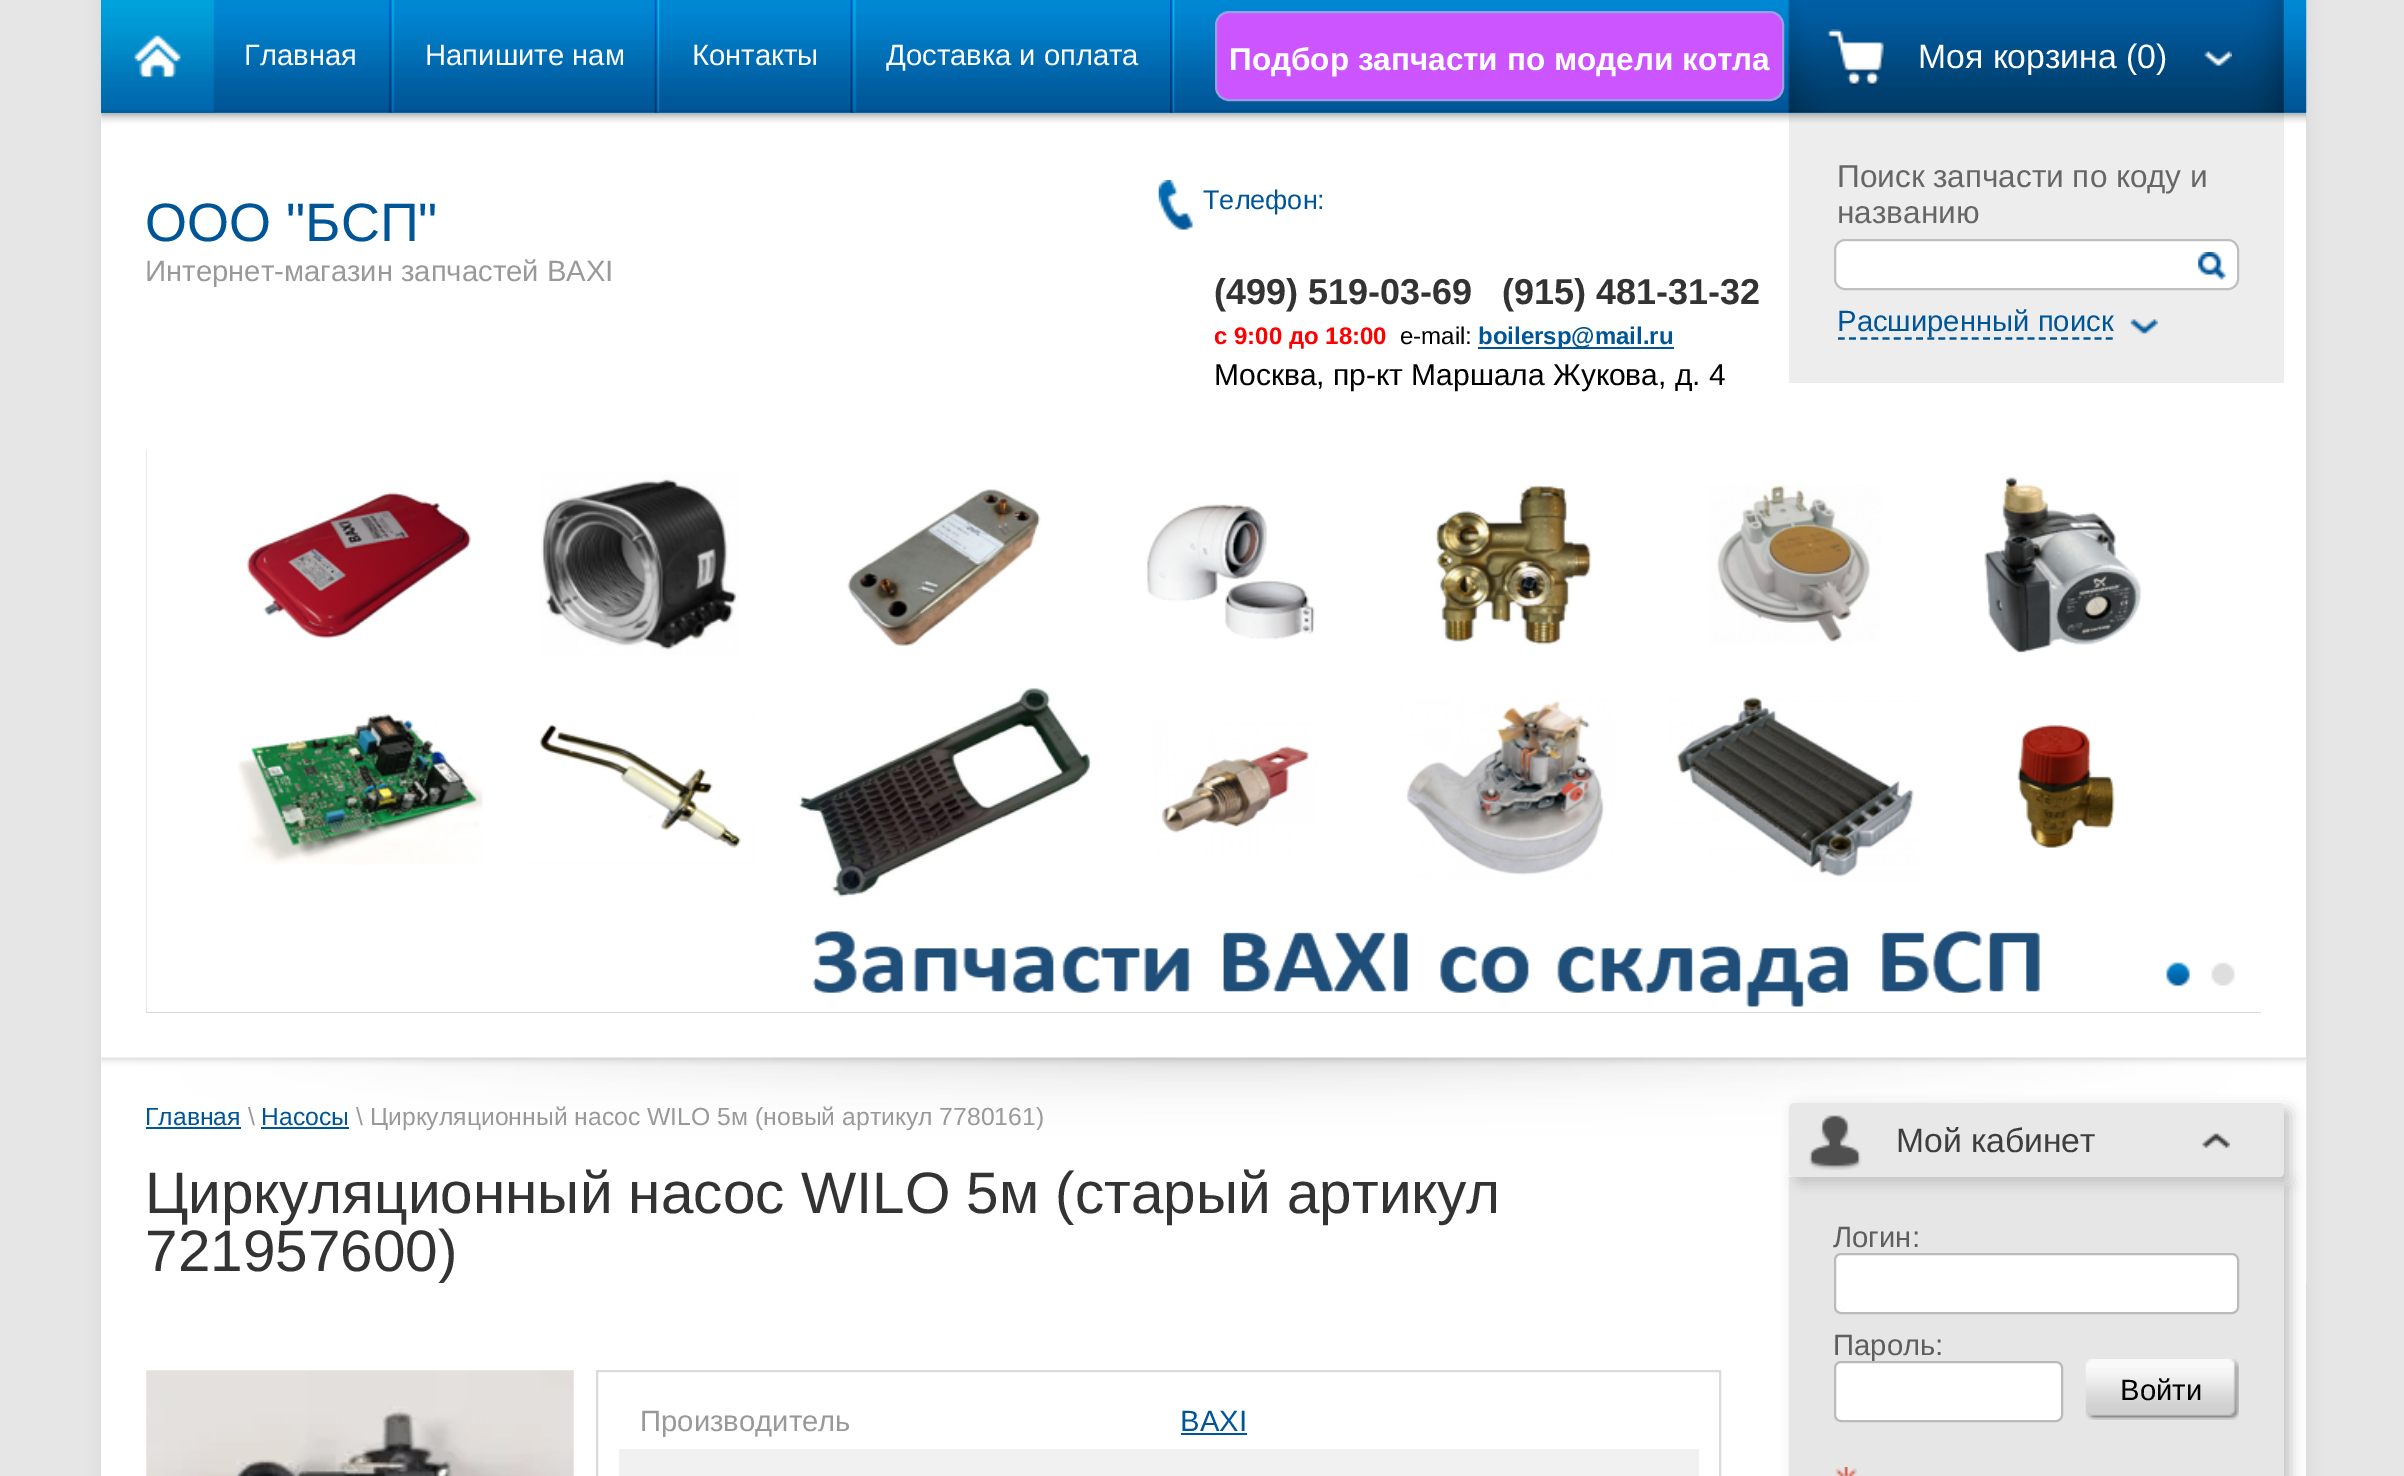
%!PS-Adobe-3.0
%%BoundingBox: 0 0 2404 1476
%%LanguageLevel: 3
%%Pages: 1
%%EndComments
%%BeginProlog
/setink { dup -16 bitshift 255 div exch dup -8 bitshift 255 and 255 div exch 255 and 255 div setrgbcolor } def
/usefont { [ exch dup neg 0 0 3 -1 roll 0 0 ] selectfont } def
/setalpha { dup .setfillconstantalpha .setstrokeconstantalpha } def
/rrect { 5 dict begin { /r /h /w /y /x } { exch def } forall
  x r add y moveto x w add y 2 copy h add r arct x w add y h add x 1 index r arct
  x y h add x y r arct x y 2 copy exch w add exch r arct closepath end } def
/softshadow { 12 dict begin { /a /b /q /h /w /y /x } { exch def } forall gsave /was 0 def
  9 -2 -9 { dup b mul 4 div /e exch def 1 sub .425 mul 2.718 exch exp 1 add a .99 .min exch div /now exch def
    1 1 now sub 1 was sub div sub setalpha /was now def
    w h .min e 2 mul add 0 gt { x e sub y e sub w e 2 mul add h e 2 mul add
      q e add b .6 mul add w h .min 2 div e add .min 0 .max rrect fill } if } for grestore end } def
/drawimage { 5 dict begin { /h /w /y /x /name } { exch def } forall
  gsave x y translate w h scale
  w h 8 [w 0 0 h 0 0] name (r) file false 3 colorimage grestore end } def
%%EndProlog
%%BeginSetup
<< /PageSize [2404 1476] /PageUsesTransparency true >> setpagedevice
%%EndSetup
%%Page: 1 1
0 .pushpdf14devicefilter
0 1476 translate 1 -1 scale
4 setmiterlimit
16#E6E6E6 setink
0 0 2404 1476 rectfill
16#D5D5D5 setink
101 -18 2205 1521 0 9 1 softshadow
16#FFFFFF setink
101 113 2205 1363 rectfill
16#0088D5 setink
101 0 2205 113 rectfill
(img1.raw) 101 0 2206 113 drawimage
(img2.raw) 101 0 113 113 drawimage
(img3.raw) 388 0 7 113 drawimage
/LiberationSans-Regular 29.25 usefont
16#FFFFFF setink
244 65 moveto (Главная) show
(img4.raw) 654 0 6 113 drawimage
425 65 moveto (Напишите нам) show
(img5.raw) 850 0 6 113 drawimage
692 65 moveto (Контакты) show
(img6.raw) 1170 0 5 113 drawimage
886 65 moveto (Доставка и оплата) show
16#CD55FF setink
1216 12 567 88 13 rrect gsave fill grestore
16#9A9FE5 setink
2 setlinewidth
stroke
/LiberationSans-Bold 31.5 usefont
16#FFFFFF setink
1229 70 moveto (Подбор запчасти по модели котла) show
(img7.raw) 1788 0 496 113 drawimage
(img8.raw) 1826 29 406 59 drawimage
/LiberationSans-Regular 33.75 usefont
1918 68 moveto (Моя корзина \(0\)) show
16#EDEDED setink
1789 113 495 270 rectfill
(img9.raw) 101 113 2206 10 drawimage
/LiberationSans-Regular 54 usefont
16#005596 setink
145 241 moveto (ООО "БСП") show
/LiberationSans-Regular 29.25 usefont
16#999999 setink
145 281 moveto (Интернет-магазин запчастей BAXI) show
(img10.raw) 1158 180 35 50 drawimage
/LiberationSans-Regular 27 usefont
16#005596 setink
1203 209 moveto (Телефон:) show
/LiberationSans-Bold 36 usefont
16#333333 setink
1214 304 moveto (\(499\) 519-03-69   \(915\) 481-31-32) show
/LiberationSans-Bold 24 usefont
16#FF0000 setink
1214 344 moveto (с 9:00 до 18:00) show
/LiberationSans-Regular 24 usefont
16#000000 setink
1400 344 moveto (e-mail:) show
16#005596 setink
1478 347 196 2 rectfill
/LiberationSans-Bold 24 usefont
1478 344 moveto (boilersp@mail.ru) show
/LiberationSans-Regular 30 usefont
16#000000 setink
1214 385 moveto (Москва, пр-кт Маршала Жукова, д. 4) show
/LiberationSans-Regular 31.5 usefont
16#666666 setink
1837 187 moveto (Поиск запчасти по коду и) show
1837 223 moveto (названию) show
16#FFFFFF setink
1835 240 403 49 10 rrect gsave fill grestore
16#BFBFBF setink
stroke
(img11.raw) 2198 252 28 28 drawimage
16#005596 setink
2.2 setlinewidth
[6.75 4.41] 0 setdash
1838 338.5 moveto 2113 338.5 lineto stroke
/LiberationSans-Regular 29.25 usefont
1837 331 moveto (Расширенный поиск) show
(img12.raw) 2130 319 28 15 drawimage
16#CCCCCC setink
146 450 2115 563 rectfill
(img13.raw) 146 450 2115 563 drawimage
(img14.raw) 2166 962 24 25 drawimage
(img15.raw) 2211 962 24 24 drawimage
(img16.raw) 101 1057 2206 225 drawimage
/LiberationSans-Regular 24.75 usefont
16#005596 setink
145 1125 moveto (Главная) show
146 1127 95 2 rectfill
16#999999 setink
248 1125 moveto (\\) show
16#005596 setink
261 1125 moveto (Насосы) show
261 1127 88 2 rectfill
16#999999 setink
356 1125 moveto (\\ Циркуляционный насос WILO 5м \(новый артикул 7780161\)) show
/LiberationSans-Regular 58.5 usefont
16#333333 setink
145 1213 moveto (Циркуляционный насос WILO 5м \(старый артикул) show
145 1271 moveto (721957600\)) show
(img17.raw) 146 1370 428 106 drawimage
16#DBDBDB setink
2 setlinewidth
[] 0 setdash
597 1371 1123 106 rectstroke
/LiberationSans-Regular 29.25 usefont
16#999999 setink
640 1431 moveto (Производитель) show
16#005596 setink
1180 1431 moveto (BAXI) show
1181 1433 66 2 rectfill
16#F1F1F1 setink
619 1449 1080 27 rectfill
16#C4C4C4 setink
1796 1184 495 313 0 7 1 softshadow
16#E6E6E6 setink
1789 1177 495 299 rectfill
16#C4C4C4 setink
1796 1109 495 75 5 7 1 softshadow
16#E8E8E8 setink
1789 1103 495 74 5 rrect fill
(img18.raw) 1809 1115 421 55 drawimage
/LiberationSans-Regular 33.75 usefont
16#3E3E3E setink
1896 1152 moveto (Мой кабинет) show
/LiberationSans-Regular 29.25 usefont
16#5E5E5E setink
1833 1247 moveto (Логин:) show
16#FFFFFF setink
1835 1254 403 59 6 rrect gsave fill grestore
16#BABABA setink
stroke
16#5E5E5E setink
1833 1355 moveto (Пароль:) show
16#FFFFFF setink
1835 1362 227 59 6 rrect gsave fill grestore
16#BABABA setink
stroke
(img19.raw) 2085 1359 154 61 drawimage
16#000000 setink
2120 1400 moveto (Войти) show
(img20.raw) 1835 1467 22 9 drawimage
.poppdf14devicefilter showpage
%%EOF
